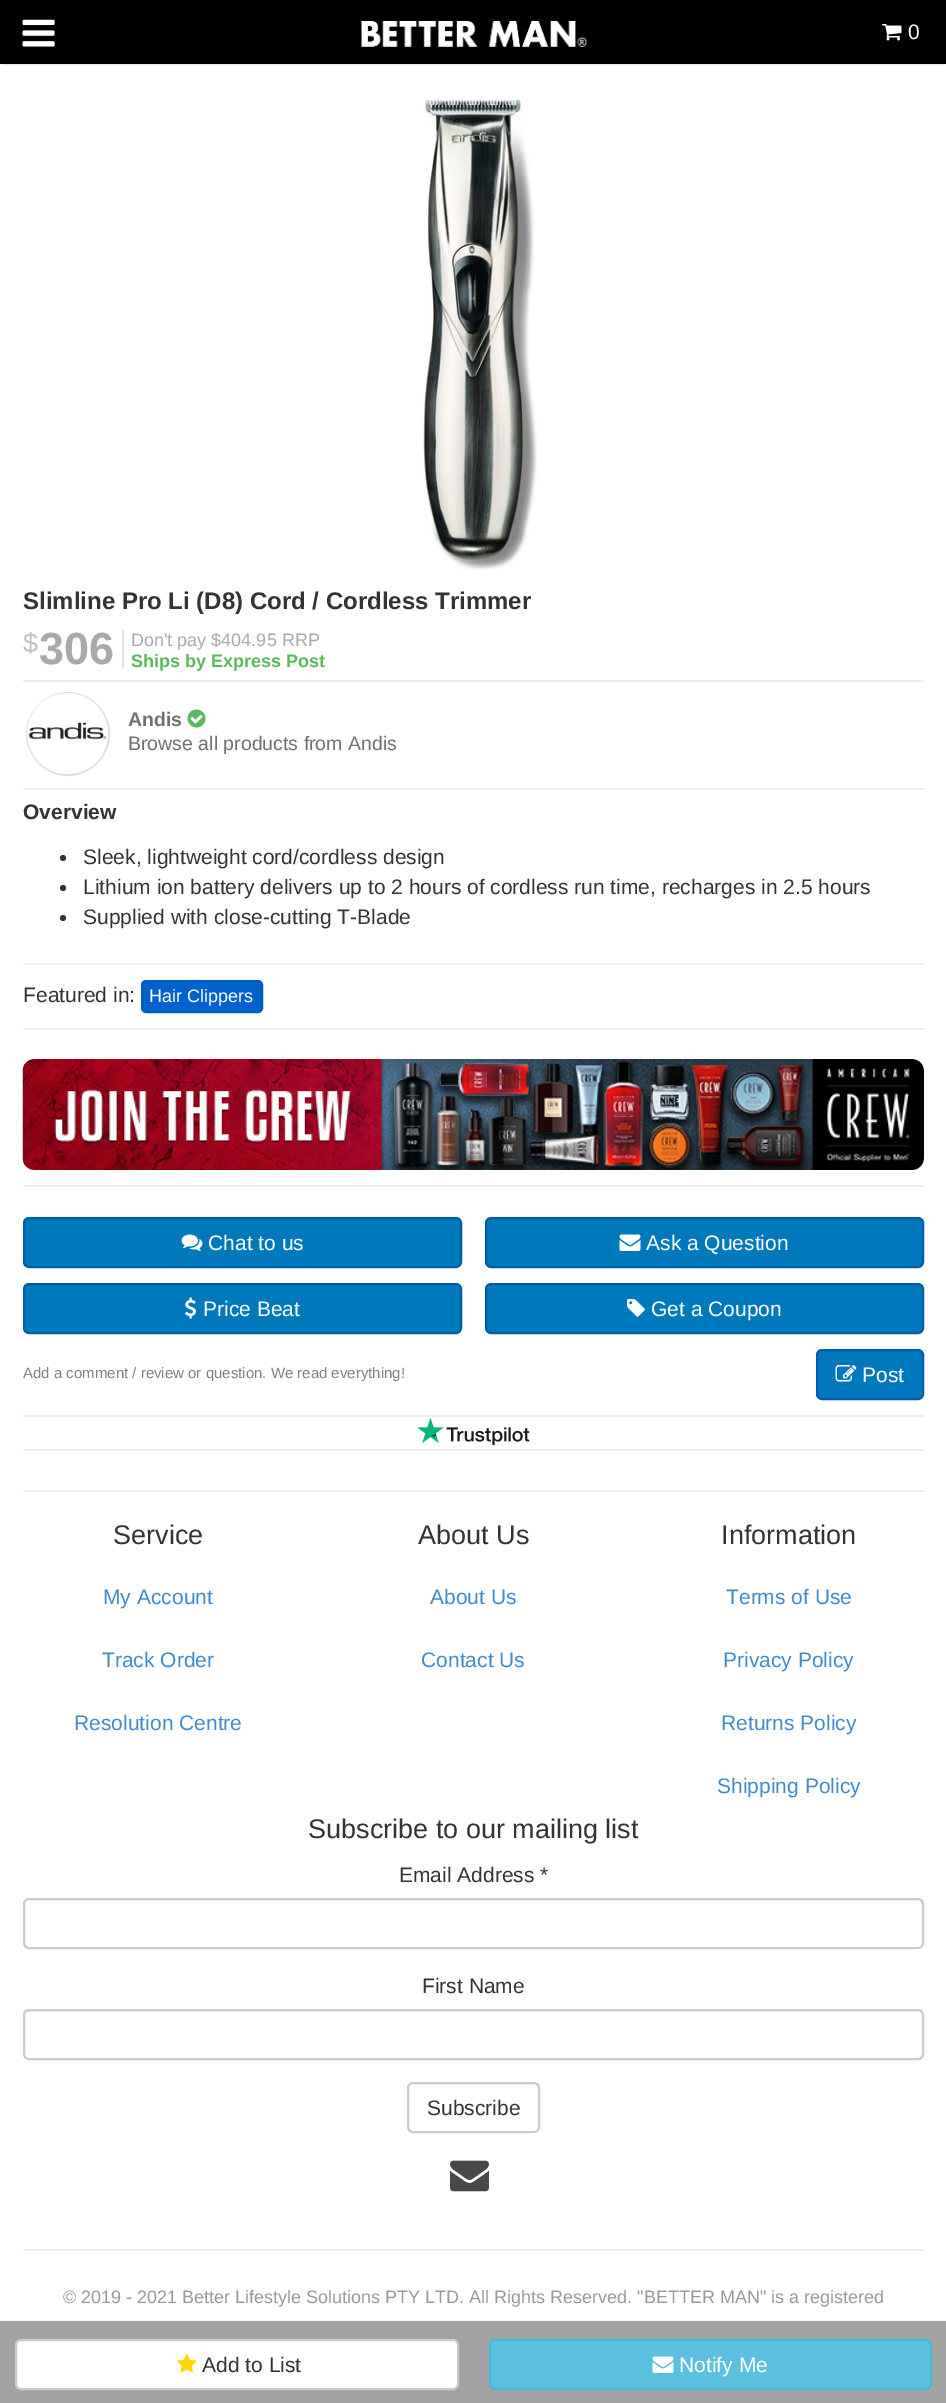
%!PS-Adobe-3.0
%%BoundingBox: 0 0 946 2403
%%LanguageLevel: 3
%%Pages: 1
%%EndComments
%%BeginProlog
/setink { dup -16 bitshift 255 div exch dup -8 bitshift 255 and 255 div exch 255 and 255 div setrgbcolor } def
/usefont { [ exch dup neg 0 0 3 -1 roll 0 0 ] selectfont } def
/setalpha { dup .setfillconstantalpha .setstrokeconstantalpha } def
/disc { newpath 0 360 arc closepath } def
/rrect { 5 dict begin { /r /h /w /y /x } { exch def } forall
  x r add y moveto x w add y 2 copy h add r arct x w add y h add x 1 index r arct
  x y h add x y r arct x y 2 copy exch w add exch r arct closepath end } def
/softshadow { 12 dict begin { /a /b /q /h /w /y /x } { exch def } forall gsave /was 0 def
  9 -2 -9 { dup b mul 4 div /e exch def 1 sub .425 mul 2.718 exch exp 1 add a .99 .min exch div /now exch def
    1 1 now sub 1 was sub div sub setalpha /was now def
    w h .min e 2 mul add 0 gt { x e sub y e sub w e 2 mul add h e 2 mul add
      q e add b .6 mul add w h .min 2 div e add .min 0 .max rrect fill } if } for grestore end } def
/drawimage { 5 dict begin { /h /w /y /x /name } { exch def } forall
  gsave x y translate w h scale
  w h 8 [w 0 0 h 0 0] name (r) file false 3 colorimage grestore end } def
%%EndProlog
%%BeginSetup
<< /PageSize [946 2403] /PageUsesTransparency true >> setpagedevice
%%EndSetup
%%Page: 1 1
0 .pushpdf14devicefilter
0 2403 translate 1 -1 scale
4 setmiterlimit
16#FFFFFF setink
0 0 946 2403 rectfill
16#000000 setink
3 6 941 57 0 1.5 0.52 softshadow
0 0 946 64 rectfill
(img1.raw) 22 19 33 28 drawimage
(img2.raw) 361 21 226 26 drawimage
(img3.raw) 882 24 20 17 drawimage
/LiberationSans-Regular 21 usefont
16#FFFFFF setink
908 39 moveto (0) show
(img4.raw) 423 99 114 471 drawimage
/LiberationSans-Bold 24 usefont
16#333333 setink
23 609 moveto (Slimline Pro Li \(D8\) Cord / Cordless Trimmer) show
16#E0E0E0 setink
122 630 2 38 rectfill
/LiberationSans-Regular 27 usefont
16#C1C0C0 setink
23 652 moveto ($) show
/LiberationSans-Bold 45 usefont
16#A9A9A9 setink
39 664 moveto (306) show
/LiberationSans-Regular 18 usefont
131 646 moveto (Don't pay $404.95 RRP) show
/LiberationSans-Bold 18 usefont
16#5CB85C setink
131 667 moveto (Ships by Express Post) show
16#EEEEEE setink
23 680 901 2 rectfill
16#E0E0E0 setink
2 setlinewidth
68 734 41 disc stroke
(img5.raw) 27 693 81 81 drawimage
/LiberationSans-Bold 19.5 usefont
16#707070 setink
128 726 moveto (Andis) show
(img6.raw) 187 709 19 19 drawimage
/LiberationSans-Regular 19.5 usefont
128 750 moveto (Browse all products from Andis) show
16#EEEEEE setink
23 788 901 2 rectfill
/LiberationSans-Bold 21 usefont
16#333333 setink
23 819 moveto (Overview) show
63 858 3 disc fill
/LiberationSans-Regular 21 usefont
83 864 moveto (Sleek, lightweight cord/cordless design) show
63 888 3 disc fill
83 894 moveto (Lithium ion battery delivers up to 2 hours of cordless run time, recharges in 2.5 hours) show
63 918 3 disc fill
83 924 moveto (Supplied with close-cutting T-Blade) show
16#EEEEEE setink
23 963 901 2 rectfill
16#333333 setink
23 1002 moveto (Featured in:) show
16#0062CC setink
142 981 120 31 4 rrect gsave fill grestore
16#005CBF setink
stroke
/LiberationSans-Regular 18 usefont
16#FFFFFF setink
149 1002 moveto (Hair Clippers) show
16#EEEEEE setink
23 1028 901 2 rectfill
(img7.raw) 22 1059 902 111 drawimage
23 1185 901 2 rectfill
16#A2A2A2 setink
0 2321 946 82 rectfill
16#FFFFFF setink
16 2340 442 49 5 rrect gsave fill grestore
16#CCCCCC setink
stroke
(img8.raw) 177 2353 20 20 drawimage
/LiberationSans-Regular 21 usefont
16#333333 setink
202 2372 moveto (Add to List) show
16#5BC0DE setink
490 2340 441 49 5 rrect gsave fill grestore
16#46B8DA setink
stroke
(img9.raw) 652 2356 22 17 drawimage
16#FFFFFF setink
679 2372 moveto (Notify Me) show
16#0079BC setink
24 1218 437 49 5 rrect gsave fill grestore
16#005CA6 setink
stroke
(img10.raw) 181 1234 22 17 drawimage
16#FFFFFF setink
208 1250 moveto (Chat to us) show
16#0079BC setink
486 1218 437 49 5 rrect gsave fill grestore
16#005CA6 setink
stroke
(img11.raw) 619 1234 22 17 drawimage
16#FFFFFF setink
646 1250 moveto (Ask a Question) show
16#0079BC setink
24 1284 437 49 5 rrect gsave fill grestore
16#005CA6 setink
stroke
(img12.raw) 185 1297 11 22 drawimage
16#FFFFFF setink
203 1316 moveto (Price Beat) show
16#0079BC setink
486 1284 437 49 5 rrect gsave fill grestore
16#005CA6 setink
stroke
(img13.raw) 627 1299 18 18 drawimage
16#FFFFFF setink
651 1316 moveto (Get a Coupon) show
/LiberationSans-Regular 15 usefont
16#808080 setink
23 1378 moveto (Add a comment / review or question. We read everything!) show
16#0079BC setink
817 1350 106 49 5 rrect gsave fill grestore
16#005CA6 setink
stroke
(img14.raw) 835 1365 22 17 drawimage
/LiberationSans-Regular 21 usefont
16#FFFFFF setink
862 1382 moveto (Post) show
16#EEEEEE setink
23 1415 901 2 rectfill
23 1449 901 2 rectfill
(img15.raw) 417 1418 113 28 drawimage
23 1490 901 2 rectfill
/LiberationSans-Regular 27 usefont
16#333333 setink
113 1544 moveto (Service) show
/LiberationSans-Regular 21 usefont
16#428BCA setink
[
    [(My Account) 103 1604]
    [(Track Order) 102 1667]
    [(Resolution Centre) 74 1730]
] { aload pop moveto show } forall
/LiberationSans-Regular 27 usefont
16#333333 setink
418 1544 moveto (About Us) show
/LiberationSans-Regular 21 usefont
16#428BCA setink
430 1604 moveto (About Us) show
421 1667 moveto (Contact Us) show
/LiberationSans-Regular 27 usefont
16#333333 setink
721 1544 moveto (Information) show
/LiberationSans-Regular 21 usefont
16#428BCA setink
[
    [(Terms of Use) 726 1604]
    [(Privacy Policy) 723 1667]
    [(Returns Policy) 721 1730]
    [(Shipping Policy) 717 1793]
] { aload pop moveto show } forall
/LiberationSans-Regular 27 usefont
16#333333 setink
308 1838 moveto (Subscribe to our mailing list) show
/LiberationSans-Regular 21 usefont
399 1882 moveto (Email Address *) show
16#ECECEC setink
28 1900 moveto 918 1900 lineto 920 1900 922 1903 922 1905 curveto 922 1945 lineto 923 1944 923 1943 923 1942 curveto 923 1904 lineto 923 1901 921 1899 918 1899 curveto 29 1899 lineto 26 1899 24 1901 24 1904 curveto 24 1905 lineto 24 1903 26 1900 28 1900 curveto closepath fill
16#CCCCCC setink
24 1899 899 49 5 rrect stroke
16#333333 setink
422 1993 moveto (First Name) show
16#ECECEC setink
28 2012 moveto 918 2012 lineto 920 2012 922 2014 922 2016 curveto 922 2056 lineto 923 2055 923 2054 923 2053 curveto 923 2015 lineto 923 2012 921 2010 918 2010 curveto 29 2010 lineto 26 2010 24 2012 24 2015 curveto 24 2016 lineto 24 2014 26 2012 28 2012 curveto closepath fill
16#CCCCCC setink
24 2010 899 49 5 rrect stroke
408 2083 131 49 5 rrect stroke
16#333333 setink
427 2115 moveto (Subscribe) show
(img16.raw) 450 2160 39 32 drawimage
16#EEEEEE setink
23 2249 901 2 rectfill
/LiberationSans-Regular 18 usefont
16#999999 setink
63 2303 moveto (© 2019 - 2021 Better Lifestyle Solutions PTY LTD. All Rights Reserved. "BETTER MAN" is a registered) show
.poppdf14devicefilter showpage
%%EOF
